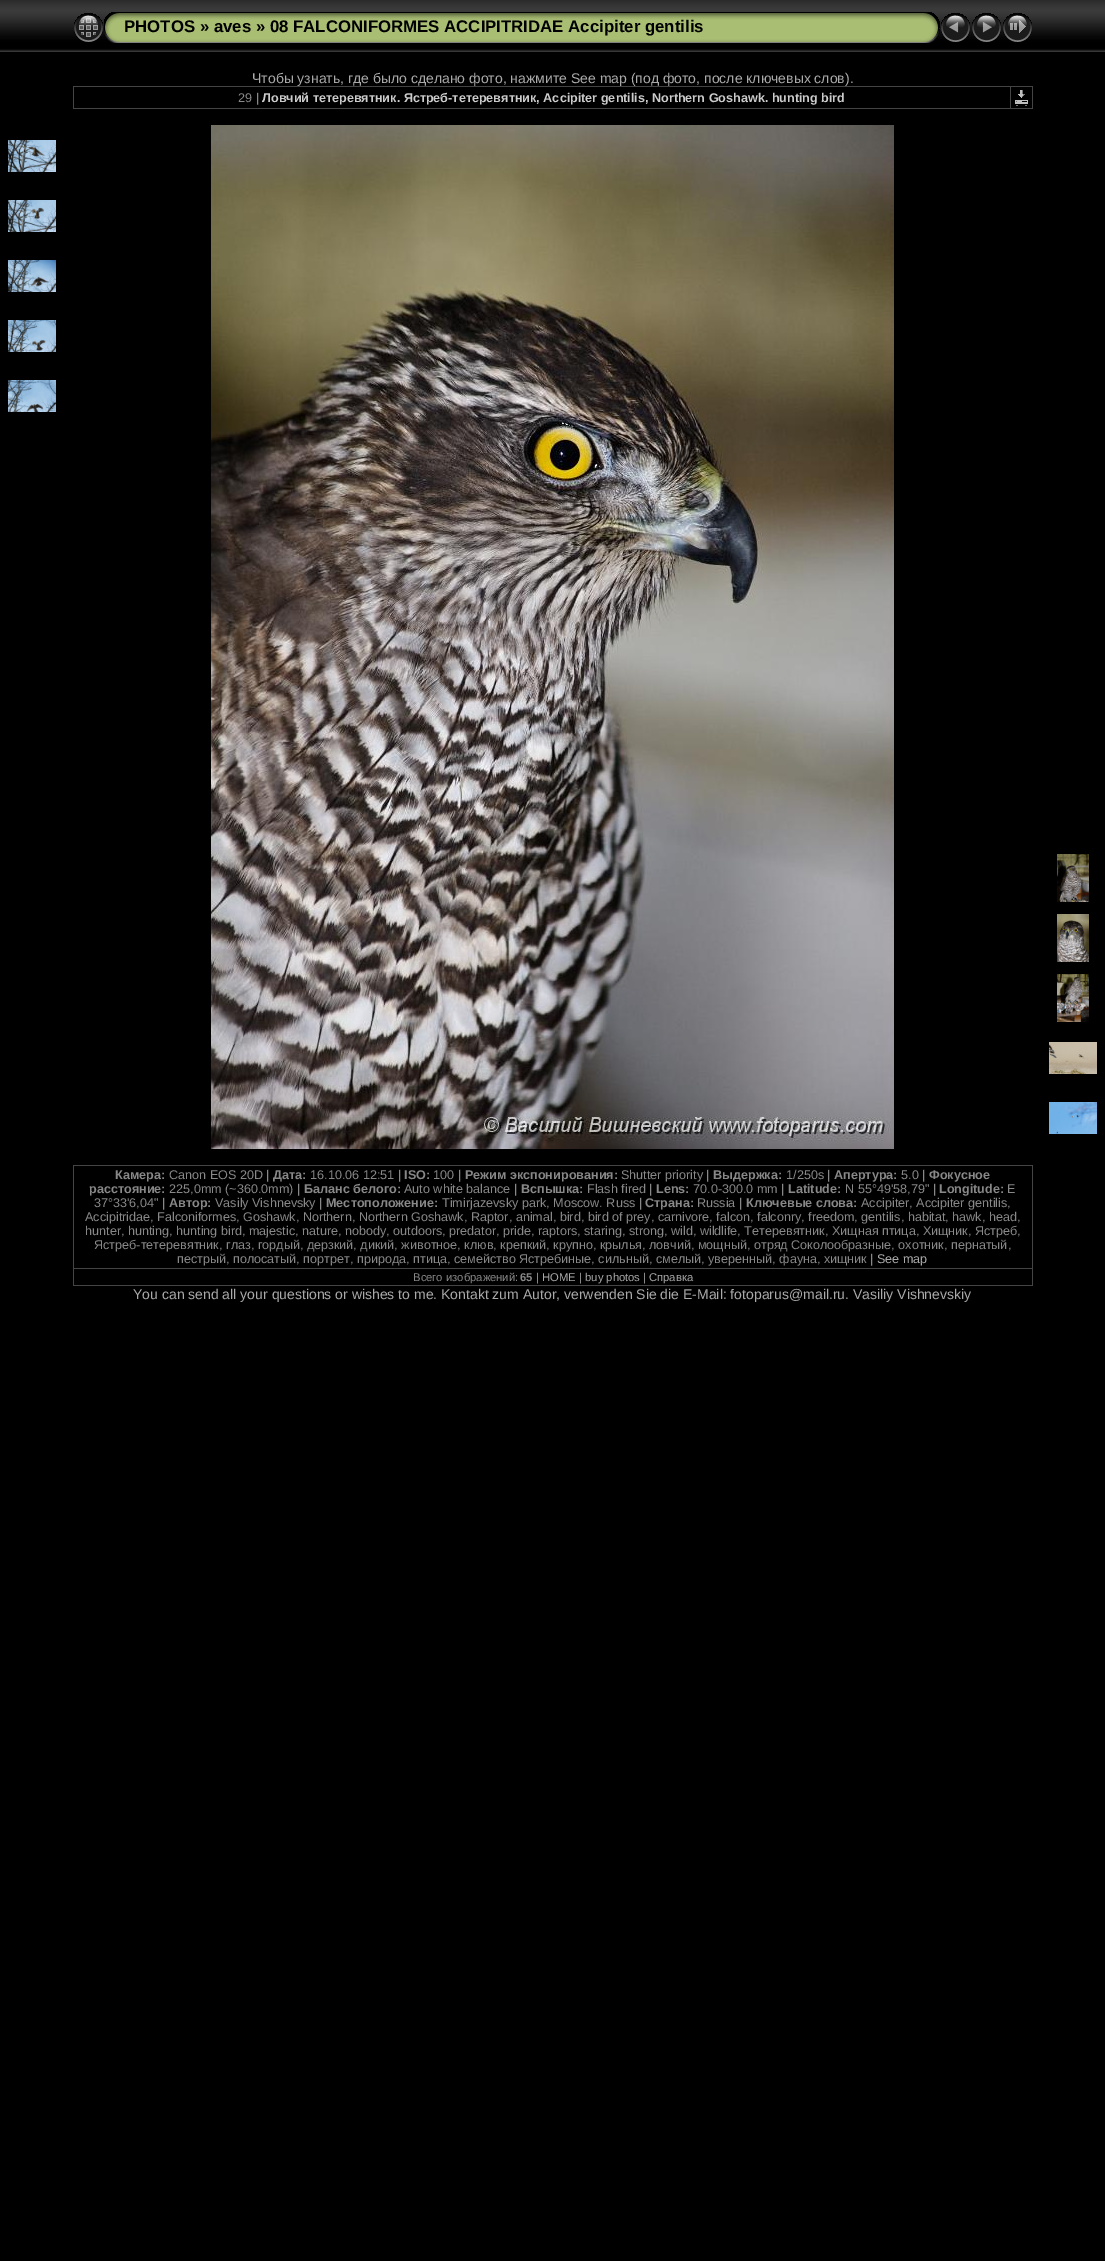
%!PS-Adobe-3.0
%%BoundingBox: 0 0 1105 2261
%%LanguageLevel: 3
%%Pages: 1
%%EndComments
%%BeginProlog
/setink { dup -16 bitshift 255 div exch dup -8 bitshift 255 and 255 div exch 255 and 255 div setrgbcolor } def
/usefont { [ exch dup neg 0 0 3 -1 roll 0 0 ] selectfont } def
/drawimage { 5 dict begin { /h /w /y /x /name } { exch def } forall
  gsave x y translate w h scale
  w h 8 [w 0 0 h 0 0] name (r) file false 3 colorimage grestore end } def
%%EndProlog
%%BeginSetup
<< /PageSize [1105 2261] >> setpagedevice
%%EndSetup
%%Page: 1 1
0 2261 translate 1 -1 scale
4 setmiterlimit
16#000000 setink
0 0 1105 2261 rectfill
(img1.raw) 0 0 1105 52 drawimage
(img2.raw) 74 13 29 29 drawimage
(img3.raw) 104 12 20 31 drawimage
(img4.raw) 124 12 796 31 drawimage
/LiberationSans-Bold 16.8 usefont
124 32 moveto (PHOTOS » aves » 08 FALCONIFORMES ACCIPITRIDAE Accipiter gentilis) show
(img5.raw) 920 12 20 31 drawimage
(img6.raw) 941 13 29 29 drawimage
(img7.raw) 972 13 29 29 drawimage
(img8.raw) 1003 13 29 29 drawimage
/LiberationSans-Regular 14 usefont
16#AAAAAA setink
252 83 moveto (Чтобы узнать, где было сделано фото, нажмите See map \(под фото, после ключевых слов\).) show
[
    [73 86 960 1 16#444444]
    [1032 86 1 23 16#444444]
    [73 108 960 1 16#444444]
    [73 86 1 23 16#444444]
] { aload pop setink rectfill } forall
/LiberationSans-Regular 12.6 usefont
16#888888 setink
238 102 moveto (29 |) show
/LiberationSans-Bold 12.6 usefont
16#CCCCCC setink
262 102 moveto (Ловчий тетеревятник. Ястреб-тетеревятник, Accipiter gentilis, Northern Goshawk. hunting bird) show
16#444444 setink
1010 86 1 23 rectfill
(img9.raw) 1015 90 13 16 drawimage
(img10.raw) 8 140 48 32 drawimage
(img11.raw) 8 200 48 32 drawimage
(img12.raw) 8 260 48 32 drawimage
(img13.raw) 8 320 48 32 drawimage
(img14.raw) 8 380 48 32 drawimage
(img15.raw) 211 125 683 1024 drawimage
(img16.raw) 1057 854 32 48 drawimage
(img17.raw) 1057 914 32 48 drawimage
(img18.raw) 1057 974 32 48 drawimage
(img19.raw) 1049 1042 48 32 drawimage
(img20.raw) 1049 1102 48 32 drawimage
[
    [73 1165 960 1 16#444444]
    [1032 1165 1 121 16#444444]
    [73 1285 960 1 16#444444]
    [73 1165 1 121 16#444444]
] { aload pop setink rectfill } forall
16#888888 setink
115 1179 moveto (Камера:) show
/LiberationSans-Regular 12.6 usefont
169 1179 moveto (Canon EOS 20D |) show
/LiberationSans-Bold 12.6 usefont
273 1179 moveto (Дата:) show
/LiberationSans-Regular 12.6 usefont
310 1179 moveto (16.10.06 12:51 |) show
/LiberationSans-Bold 12.6 usefont
404 1179 moveto (ISO:) show
/LiberationSans-Regular 12.6 usefont
433 1179 moveto (100 |) show
/LiberationSans-Bold 12.6 usefont
465 1179 moveto (Режим экспонирования:) show
/LiberationSans-Regular 12.6 usefont
621 1179 moveto (Shutter priority |) show
/LiberationSans-Bold 12.6 usefont
713 1179 moveto (Выдержка:) show
/LiberationSans-Regular 12.6 usefont
786 1179 moveto (1/250s |) show
/LiberationSans-Bold 12.6 usefont
834 1179 moveto (Апертура:) show
/LiberationSans-Regular 12.6 usefont
901 1179 moveto (5.0 |) show
/LiberationSans-Bold 12.6 usefont
929 1179 moveto (Фокусное) show
89 1193 moveto (расстояние:) show
/LiberationSans-Regular 12.6 usefont
169 1193 moveto (225,0mm \(~360.0mm\) |) show
/LiberationSans-Bold 12.6 usefont
304 1193 moveto (Баланс белого:) show
/LiberationSans-Regular 12.6 usefont
404 1193 moveto (Auto white balance |) show
/LiberationSans-Bold 12.6 usefont
521 1193 moveto (Вспышка:) show
/LiberationSans-Regular 12.6 usefont
587 1193 moveto (Flash fired |) show
/LiberationSans-Bold 12.6 usefont
656 1193 moveto (Lens:) show
/LiberationSans-Regular 12.6 usefont
693 1193 moveto (70.0-300.0 mm |) show
/LiberationSans-Bold 12.6 usefont
788 1193 moveto (Latitude:) show
/LiberationSans-Regular 12.6 usefont
845 1193 moveto (N 55°49'58,79" |) show
/LiberationSans-Bold 12.6 usefont
939 1193 moveto (Longitude:) show
/LiberationSans-Regular 12.6 usefont
1007 1193 moveto (E) show
94 1207 moveto (37°33'6,04" |) show
/LiberationSans-Bold 12.6 usefont
169 1207 moveto (Автор:) show
/LiberationSans-Regular 12.6 usefont
215 1207 moveto (Vasily Vishnevsky |) show
/LiberationSans-Bold 12.6 usefont
326 1207 moveto (Местоположение:) show
/LiberationSans-Regular 12.6 usefont
442 1207 moveto (Timirjazevsky park, Moscow. Russ |) show
/LiberationSans-Bold 12.6 usefont
645 1207 moveto (Страна:) show
/LiberationSans-Regular 12.6 usefont
697 1207 moveto (Russia |) show
/LiberationSans-Bold 12.6 usefont
746 1207 moveto (Ключевые слова:) show
/LiberationSans-Regular 12.6 usefont
[
    [(Accipiter, Accipiter gentilis,) 861 1207]
    [(Accipitridae, Falconiformes, Goshawk, Northern, Northern Goshawk, Raptor, animal, bird, bird of prey, carnivore, falcon, falconry, freedom, gentilis, habitat, hawk, head,) 85 1221]
    [(hunter, hunting, hunting bird, majestic, nature, nobody, outdoors, predator, pride, raptors, staring, strong, wild, wildlife, Тетеревятник, Хищная птица, Хищник, Ястреб,) 85 1235]
    [(Ястреб-тетеревятник, глаз, гордый, дерзкий, дикий, животное, клюв, крепкий, крупно, крылья, ловчий, мощный, отряд Соколообразные, охотник, пернатый,) 94 1249]
    [(пестрый, полосатый, портрет, природа, птица, семейство Ястребиные, сильный, смелый, уверенный, фауна, хищник |) 177 1263]
] { aload pop moveto show } forall
16#AAAAAA setink
877 1263 moveto (See map) show
16#444444 setink
73 1268 960 1 rectfill
/LiberationSans-Regular 11.25 usefont
16#888888 setink
413 1281 moveto (Всего изображений:) show
/LiberationSans-Bold 11.25 usefont
520 1281 moveto (65) show
/LiberationSans-Regular 11.25 usefont
536 1281 moveto (|) show
16#AAAAAA setink
542 1281 moveto (HOME) show
16#888888 setink
579 1281 moveto (|) show
16#AAAAAA setink
585 1281 moveto (buy photos) show
16#888888 setink
643 1281 moveto (|) show
16#AAAAAA setink
649 1281 moveto (Справка) show
/LiberationSans-Regular 14 usefont
133 1299 moveto (You can send all your questions or wishes to me. Kontakt zum Autor, verwenden Sie die E-Mail: fotoparus@mail.ru. Vasiliy Vishnevskiy) show
showpage
%%EOF
